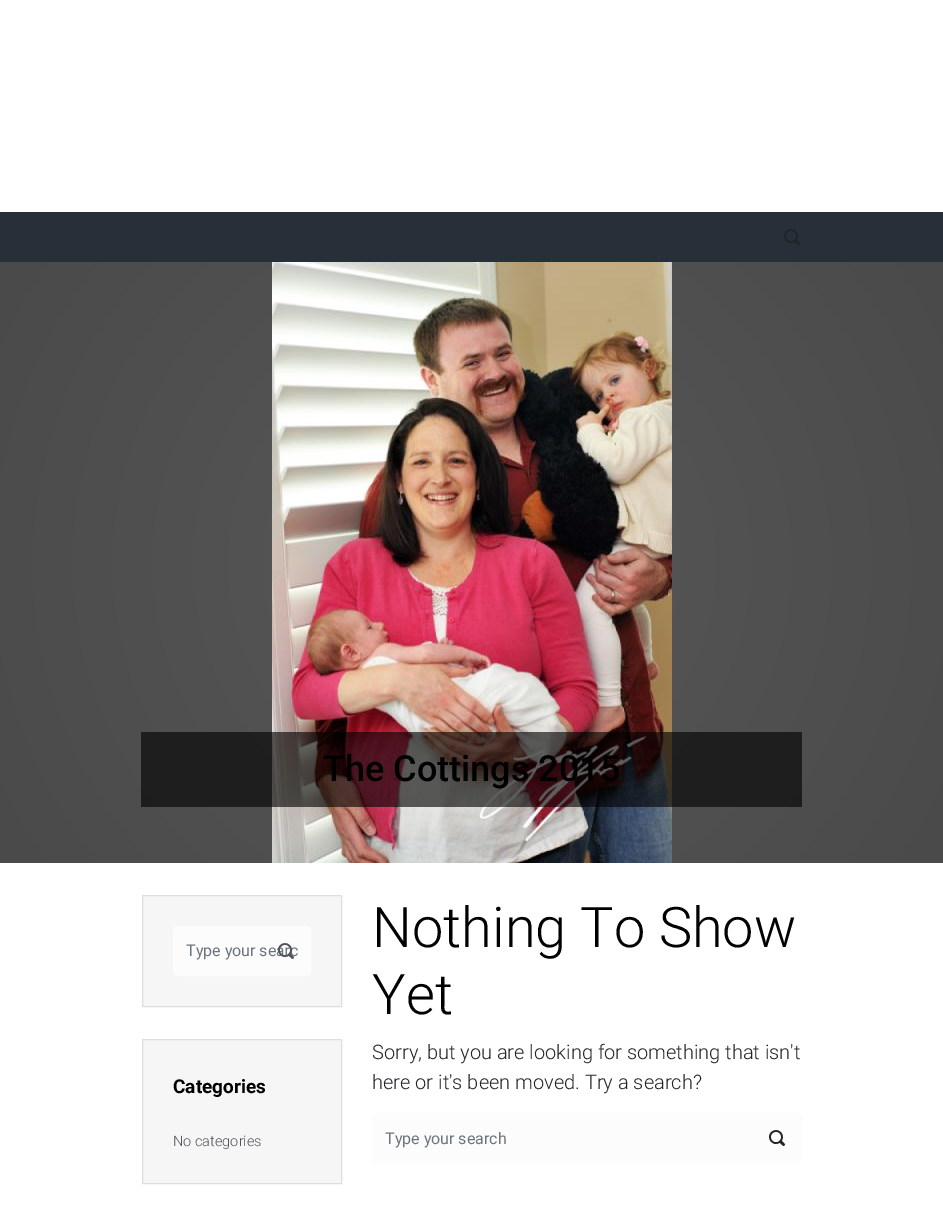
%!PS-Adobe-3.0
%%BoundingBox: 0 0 943 1205
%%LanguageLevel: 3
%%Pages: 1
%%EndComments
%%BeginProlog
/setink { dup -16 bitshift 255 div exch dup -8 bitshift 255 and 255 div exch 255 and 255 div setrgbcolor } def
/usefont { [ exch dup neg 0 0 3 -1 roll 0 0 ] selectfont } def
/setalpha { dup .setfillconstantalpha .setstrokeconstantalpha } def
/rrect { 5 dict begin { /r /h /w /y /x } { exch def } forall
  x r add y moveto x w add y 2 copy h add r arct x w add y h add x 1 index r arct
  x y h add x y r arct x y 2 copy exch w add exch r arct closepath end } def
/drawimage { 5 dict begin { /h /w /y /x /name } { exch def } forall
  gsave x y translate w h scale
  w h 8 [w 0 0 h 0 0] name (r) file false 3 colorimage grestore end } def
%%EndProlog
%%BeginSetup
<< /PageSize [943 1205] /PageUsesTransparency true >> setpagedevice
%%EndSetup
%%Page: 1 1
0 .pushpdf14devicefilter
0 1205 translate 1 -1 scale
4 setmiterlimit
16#FFFFFF setink
0 0 943 1205 rectfill
16#273039 setink
0 212 943 50 rectfill
(img1.raw) 784 229 16 16 drawimage
gsave 0 262 moveto 943 262 lineto 943 863 lineto 0 863 lineto closepath clip newpath 472 563 translate 559 559 scale
<< /ShadingType 3 /ColorSpace /DeviceRGB /Coords [0 0 0 0 0 1] /Extend [true true] /Function << /FunctionType 2 /Domain [0 1] /C0 [0.349 0.349 0.349] /C1 [0.29 0.29 0.29] /N 1 >> >> shfill grestore
(img2.raw) 272 262 400 601 drawimage
0.62 setalpha
16#000000 setink
141 732 661 75 rectfill
/Roboto-Medium 36 usefont
1 setalpha
323 781 moveto (The Cottings 2015) show
16#F6F6F6 setink
142.5 895.5 moveto 341.5 895.5 lineto 341.5 1006.5 lineto 142.5 1006.5 lineto closepath gsave fill grestore
16#E0DDDD setink
stroke
16#FCFCFC setink
173.5 926.5 137 49 3.5 rrect gsave fill grestore
stroke
/Roboto-Regular 16 usefont
16#6C757D setink
186 956 moveto (Type your searc) show
(img3.raw) 278 943 16 16 drawimage
16#F6F6F6 setink
142.5 1039.5 moveto 341.5 1039.5 lineto 341.5 1183.5 lineto 142.5 1183.5 lineto closepath gsave fill grestore
16#E0DDDD setink
stroke
/Roboto-Bold 19 usefont
16#000000 setink
173 1093 moveto (Categories) show
/Roboto-Light 14.5 usefont
16#51545C setink
173 1146 moveto (No categories) show
/Roboto-Light 56 usefont
16#000000 setink
372 947 moveto (Nothing To Show) show
372 1014 moveto (Yet) show
/Roboto-Light 20 usefont
16#212529 setink
372 1059 moveto (Sorry, but you are looking for something that isn't) show
372 1089 moveto (here or it's been moved. Try a search?) show
16#FCFCFC setink
372.5 1113.5 429 49 3.5 rrect gsave fill grestore
stroke
/Roboto-Regular 16 usefont
16#6C757D setink
385 1144 moveto (Type your search) show
(img4.raw) 769 1130 16 16 drawimage
.poppdf14devicefilter showpage
%%EOF
